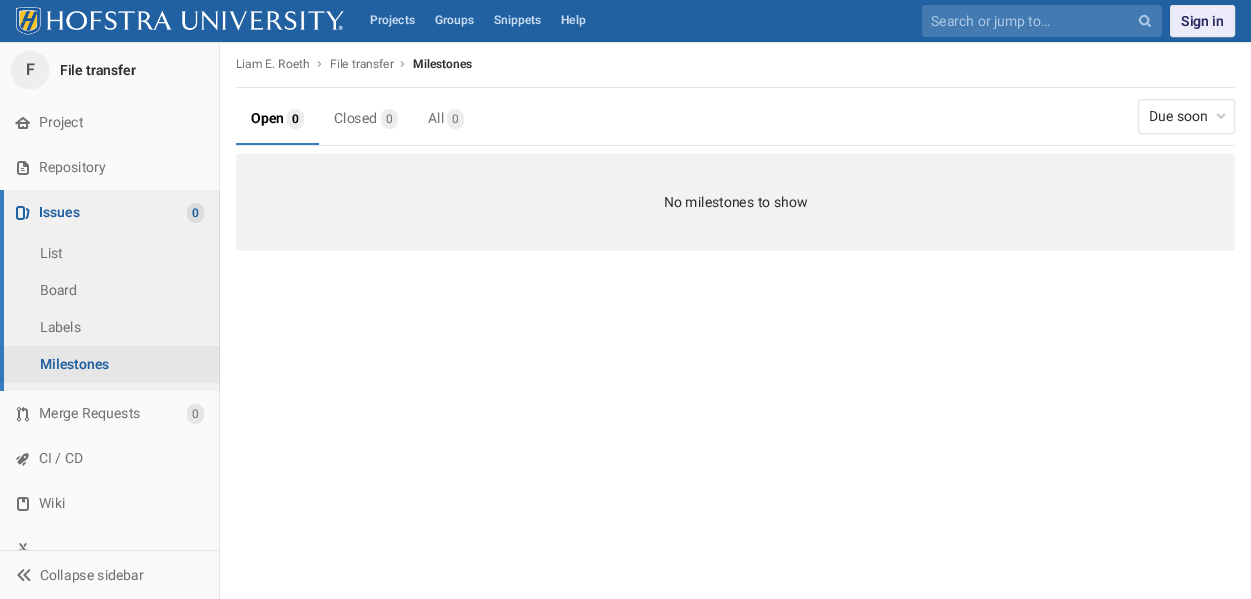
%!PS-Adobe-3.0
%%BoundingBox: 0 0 1251 599
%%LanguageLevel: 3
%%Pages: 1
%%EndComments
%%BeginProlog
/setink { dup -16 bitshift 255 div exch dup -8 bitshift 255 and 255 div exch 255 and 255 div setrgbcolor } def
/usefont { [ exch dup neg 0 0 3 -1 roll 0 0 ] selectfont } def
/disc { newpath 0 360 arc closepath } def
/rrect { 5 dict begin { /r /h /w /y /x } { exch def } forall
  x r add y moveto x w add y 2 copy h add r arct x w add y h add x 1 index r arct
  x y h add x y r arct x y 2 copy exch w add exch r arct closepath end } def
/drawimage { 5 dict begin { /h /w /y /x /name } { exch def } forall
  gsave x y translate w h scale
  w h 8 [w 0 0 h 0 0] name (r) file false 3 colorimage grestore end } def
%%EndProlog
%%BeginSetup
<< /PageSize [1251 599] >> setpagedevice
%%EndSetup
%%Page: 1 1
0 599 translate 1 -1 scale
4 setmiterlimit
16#FFFFFF setink
0 0 1251 599 rectfill
[
    [219 40 1 559 16#E5E5E5]
    [0 0 1251 42 16#2261A1]
    [0 42 1251 1 16#E5E5E5]
] { aload pop setink rectfill } forall
(img1.raw) 16 7 328 28 drawimage
/Roboto-SemiBold 12 usefont
16#C9DCF2 setink
[
    [(Projects) 370 24]
    [(Groups) 435 24]
    [(Snippets) 494 24]
    [(Help) 561 24]
] { aload pop moveto show } forall
16#437AB1 setink
922 5 240 32 4 rrect fill
/Roboto-Regular 14 usefont
16#AEC8E5 setink
931 26 moveto (Search or jump to…) show
(img2.raw) 1138 14 13 13 drawimage
16#EBEBFA setink
1170.5 5.5 64 31 2.5 rrect gsave fill grestore
16#E5E5E5 setink
stroke
/Roboto-SemiBold 14 usefont
16#292961 setink
1181 26 moveto (Sign in) show
[
    [0 43 219 507 16#FAFAFA]
    [4 190 215 201 16#F0F0F0]
    [4 346 215 37 16#E6E6E6]
    [219 190 1 201 16#DCDCDC]
    [219 346 1 37 16#D3D3D3]
] { aload pop setink rectfill } forall
16#F5F5F5 setink
30 70 19.5 disc stroke
16#EEEEEE setink
30 70 19 disc fill
/Roboto-SemiBold 16 usefont
16#555555 setink
26 75 moveto (F) show
/Roboto-SemiBold 14 usefont
16#2E2E2E setink
60 75 moveto (File transfer) show
(img3.raw) 15 117 15 12 drawimage
/Roboto-Regular 14 usefont
16#707070 setink
39 127 moveto (Project) show
(img4.raw) 17 161 12 14 drawimage
39 172 moveto (Repository) show
16#367CC2 setink
0 190 4 201 rectfill
16#3477BA setink
0 346 4 37 rectfill
(img5.raw) 16 206 14 14 drawimage
/Roboto-SemiBold 14 usefont
16#2261A1 setink
39 217 moveto (Issues) show
16#DDDDDD setink
187 203 17 20 8.5 rrect fill
/Roboto-SemiBold 12 usefont
16#2261A1 setink
192 217 moveto (0) show
/Roboto-Regular 14 usefont
16#707070 setink
[
    [(List) 40 258]
    [(Board) 40 295]
    [(Labels) 40 332]
] { aload pop moveto show } forall
/Roboto-SemiBold 14 usefont
16#2261A1 setink
40 369 moveto (Milestones) show
(img6.raw) 16 407 14 15 drawimage
/Roboto-Regular 14 usefont
16#707070 setink
39 418 moveto (Merge Requests) show
16#E6E6E6 setink
187 404 17 20 8.5 rrect fill
/Roboto-Regular 12 usefont
16#707070 setink
192 418 moveto (0) show
(img7.raw) 15 453 14 14 drawimage
/Roboto-Regular 14 usefont
39 463 moveto (CI / CD) show
(img8.raw) 17 497 12 14 drawimage
39 508 moveto (Wiki) show
(img9.raw) 18 543 10 7 drawimage
16#FAFAFA setink
0 551 219 48 rectfill
16#E5E5E5 setink
0 550 219 1 rectfill
(img10.raw) 17 569 14 12 drawimage
16#707070 setink
40 580 moveto (Collapse sidebar) show
16#E5E5E5 setink
236 87 999 1 rectfill
/Roboto-Regular 12 usefont
16#707070 setink
236 68 moveto (Liam E. Roeth) show
(img11.raw) 317 61 5 6 drawimage
330 68 moveto (File transfer) show
(img11.raw) 400 61 5 6 drawimage
/Roboto-SemiBold 12 usefont
16#2E2E2E setink
413 68 moveto (Milestones) show
16#E5E5E5 setink
236 145 999 1 rectfill
16#367CC2 setink
236 143 83 2 rectfill
/Roboto-SemiBold 14 usefont
16#000000 setink
251 123 moveto (Open) show
16#EDEDED setink
287 109 17 20 8.5 rrect fill
/Roboto-SemiBold 12 usefont
16#000000 setink
292 123 moveto (0) show
/Roboto-Regular 14 usefont
16#707070 setink
334 123 moveto (Closed) show
16#EDEDED setink
381 109 17 20 8.5 rrect fill
/Roboto-Regular 12 usefont
16#707070 setink
386 123 moveto (0) show
/Roboto-Regular 14 usefont
428 123 moveto (All) show
16#EDEDED setink
447 109 17 20 8.5 rrect fill
/Roboto-Regular 12 usefont
16#707070 setink
452 123 moveto (0) show
16#E5E5E5 setink
1138.5 99.5 96 34 2.5 rrect stroke
/Roboto-Regular 14 usefont
16#2E2E2E setink
1149 121 moveto (Due soon) show
(img12.raw) 1216 113 10 6 drawimage
16#F2F2F2 setink
236 154 999 97 4 rrect fill
16#2E2E2E setink
664 207 moveto (No milestones to show) show
showpage
%%EOF
